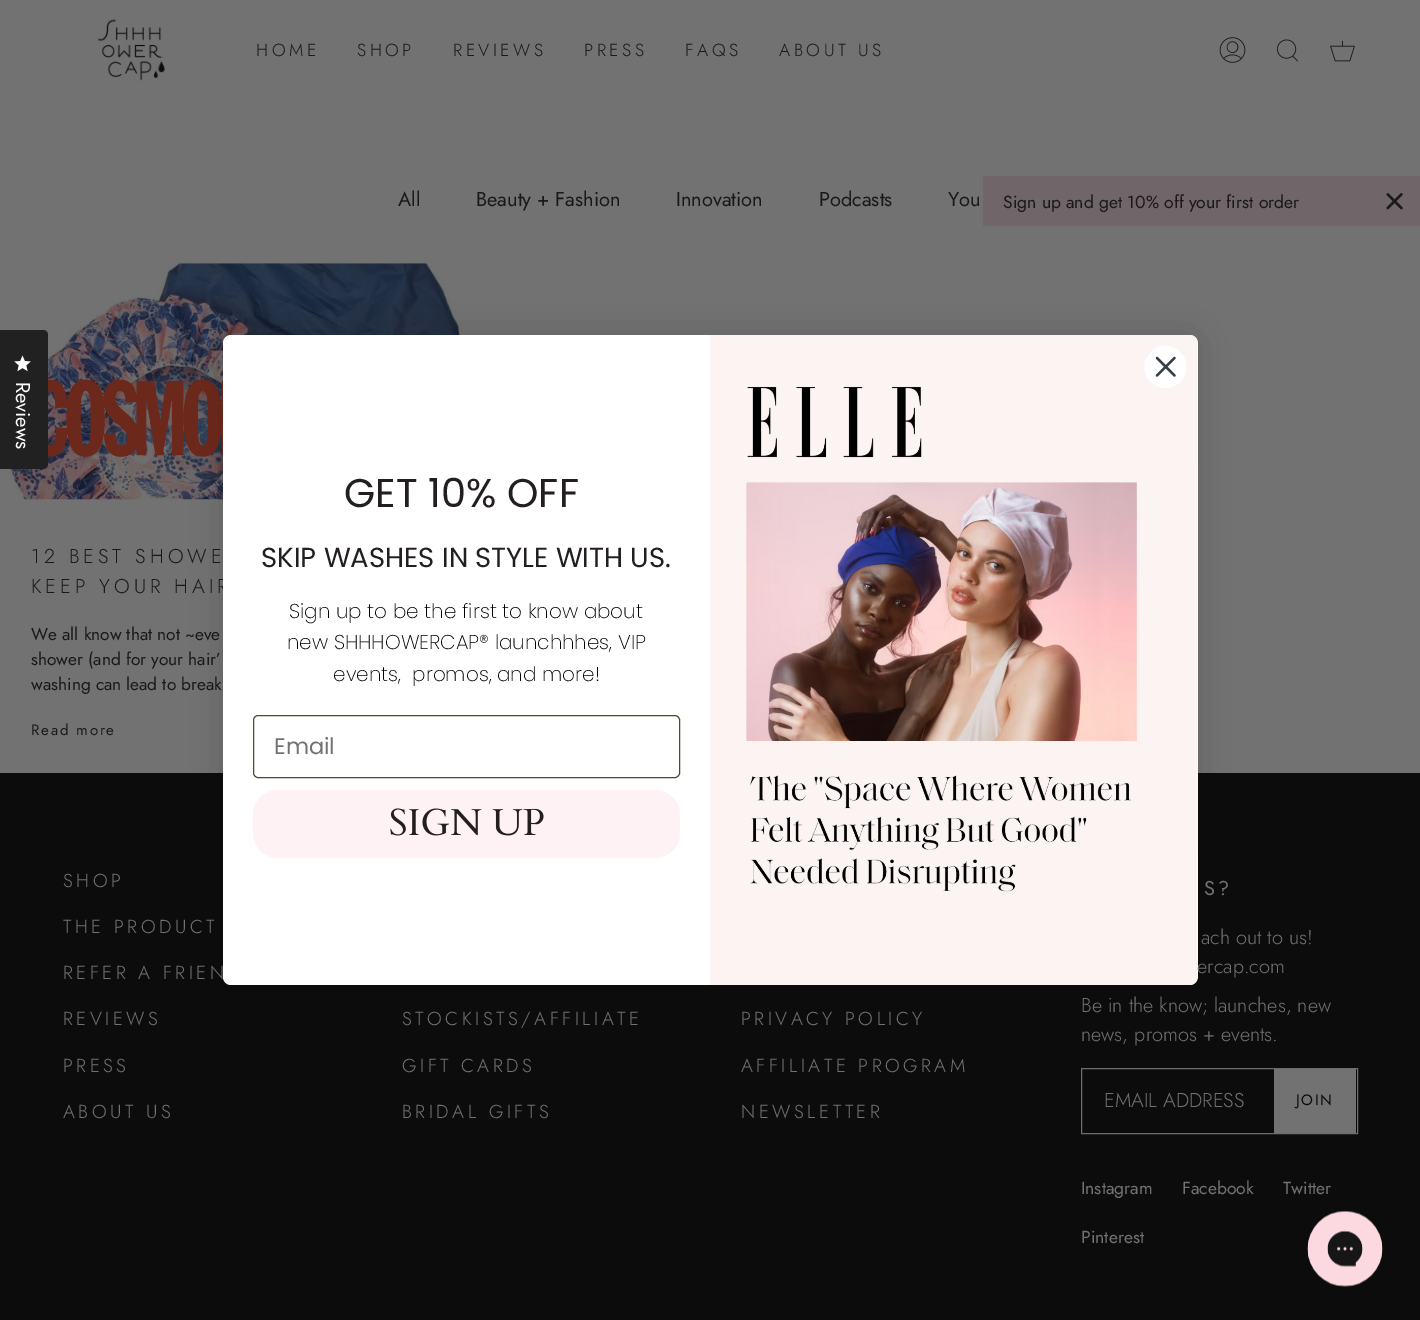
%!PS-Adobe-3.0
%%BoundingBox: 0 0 1420 1320
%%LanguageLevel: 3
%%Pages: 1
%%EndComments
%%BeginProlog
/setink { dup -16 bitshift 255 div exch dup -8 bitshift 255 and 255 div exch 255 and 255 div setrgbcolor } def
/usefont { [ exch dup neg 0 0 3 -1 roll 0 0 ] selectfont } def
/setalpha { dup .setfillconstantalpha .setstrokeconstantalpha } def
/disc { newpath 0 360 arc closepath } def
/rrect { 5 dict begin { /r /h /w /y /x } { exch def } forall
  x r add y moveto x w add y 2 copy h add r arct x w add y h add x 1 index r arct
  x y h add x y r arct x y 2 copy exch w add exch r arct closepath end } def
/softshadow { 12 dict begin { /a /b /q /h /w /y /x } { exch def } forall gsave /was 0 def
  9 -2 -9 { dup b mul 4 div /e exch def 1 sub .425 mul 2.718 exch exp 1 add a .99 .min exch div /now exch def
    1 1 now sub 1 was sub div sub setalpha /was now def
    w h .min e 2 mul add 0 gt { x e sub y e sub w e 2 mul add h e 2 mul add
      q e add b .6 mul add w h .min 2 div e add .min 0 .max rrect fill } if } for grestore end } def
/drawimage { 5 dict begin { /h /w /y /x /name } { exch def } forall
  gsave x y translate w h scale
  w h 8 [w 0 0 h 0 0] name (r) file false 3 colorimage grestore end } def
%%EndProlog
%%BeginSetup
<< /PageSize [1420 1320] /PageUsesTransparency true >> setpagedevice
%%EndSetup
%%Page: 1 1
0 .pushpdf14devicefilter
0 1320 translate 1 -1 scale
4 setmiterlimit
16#727272 setink
0 0 1420 1320 rectfill
(img1.raw) 97 19 68 62 drawimage
/Jost-Light 17.5 usefont
16#191919 setink
256 56 moveto 3.5 0 (HOME) ashow
357 56 moveto 3.5 0 (SHOP) ashow
453 56 moveto 3.5 0 (REVIEWS) ashow
584 56 moveto 3.5 0 (PRESS) ashow
685 56 moveto 3.5 0 (FAQS) ashow
779 56 moveto 3.5 0 (ABOUT US) ashow
(img2.raw) 1219 37 27 26 drawimage
(img3.raw) 1277 39 21 23 drawimage
(img4.raw) 1330 40 25 22 drawimage
/Jost-Regular 20 usefont
[
    [(All) 398 206]
    [(Beauty + Fashion) 476 206]
    [(Innovation) 676 206]
    [(Podcasts) 819 206]
    [(You) 948 206]
] { aload pop moveto show } forall
(img5.raw) 7 263 457 237 drawimage
(img6.raw) 48 379 175 78 drawimage
/Jost-Light 20 usefont
31 563 moveto 4 0 (12 BEST SHOWE) ashow
31 593 moveto 4 0 (KEEP YOUR HAIR) ashow
/Jost-Regular 17.25 usefont
[
    [(We all know that not ~eve) 31 640]
    [(shower \(and for your hair’) 31 665]
    [(washing can lead to break) 31 690]
] { aload pop moveto show } forall
/Jost-Regular 15 usefont
31 735 moveto 1.75 0 (Read more) ashow
16#706568 setink
983 176 437 50 rectfill
/Jost-Regular 17.5 usefont
16#191919 setink
1003 208 moveto (Sign up and get 10% off your first order) show
(img7.raw) 1386 193 17 17 drawimage
16#212121 setink
-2 330 moveto 43 330 lineto 46 330 48 332 48 335 curveto 48 464 lineto 48 467 46 469 43 469 curveto -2 469 lineto closepath fill
(img8.raw) 14 355 17 17 drawimage
/Jost-Regular 20 usefont
16#FFFFFF setink
gsave 16 382 translate 90.1 rotate 0 0 moveto (Reviews) show grestore
16#0C0C0C setink
0 773 1420 547 rectfill
16#000000 setink
223 335 975 650 8 19 0.15 softshadow
16#FFFFFF setink
223 335 975 650 8 rrect fill
(img10.raw) 710 335 488 650 drawimage
1165.5 367 21 disc fill
16#373F47 setink
2.2 setlinewidth
1 setlinecap
1 setlinejoin
1157 358 moveto 1174.5 375.5 lineto 1157 375.5 moveto 1174.5 358 lineto closepath stroke
/Poppins-Regular 40 usefont
16#231F20 setink
344 507 moveto (GET 10% OFF) show
/Poppins-Regular 27.5 usefont
261 567 moveto (SKIP WASHES IN STYLE WITH US.) show
/Poppins-ExtraLight 20 usefont
16#000000 setink
[
    [(Sign up to be the first to know about) 289 618]
    [(new SHHHOWERCAP® launchhhes, VIP) 287 649]
    [(events,  promos, and more!) 333 681]
] { aload pop moveto show } forall
16#54462F setink
1 setlinewidth
0 setlinecap
0 setlinejoin
253.5 715.5 426 62 4.5 rrect stroke
/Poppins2-Regular 22.5 usefont
16#727272 setink
274 754 moveto (Email) show
16#FFF2F5 setink
253 790 427 68 25 rrect fill
(img9.raw) 390 808 154 28 drawimage
/Jost-Light 18.75 usefont
16#727272 setink
63 887 moveto 3.5 0 (SHOP) ashow
63 933 moveto 3.5 0 (THE PRODUCT) ashow
63 979 moveto 3.5 0 (REFER A FRIEN) ashow
63 1025 moveto 3.5 0 (REVIEWS) ashow
63 1072 moveto 3.5 0 (PRESS) ashow
63 1118 moveto 3.5 0 (ABOUT US) ashow
402 1025 moveto 3.5 0 (STOCKISTS/AFFILIATE) ashow
402 1072 moveto 3.5 0 (GIFT CARDS) ashow
402 1118 moveto 3.5 0 (BRIDAL GIFTS) ashow
741 1025 moveto 3.5 0 (PRIVACY POLICY) ashow
741 1072 moveto 3.5 0 (AFFILIATE PROGRAM) ashow
741 1118 moveto 3.5 0 (NEWSLETTER) ashow
/Jost-Regular 20 usefont
1204 895 moveto 3.5 0 (S?) ashow
/Jost-Light 20 usefont
[
    [(ach out to us!) 1201 944]
    [(ercap.com) 1197 973]
    [(Be in the know; launches, new) 1081 1012]
    [(news, promos + events.) 1081 1041]
] { aload pop moveto show } forall
16#6C6C6C setink
1081.5 1068.5 276 65 rectstroke
16#727272 setink
1104 1107 moveto (EMAIL ADDRESS) show
1274 1069 82 64 rectfill
/Jost-Regular 15 usefont
16#0C0C0C setink
1296 1105 moveto 1.75 0 (JOIN) ashow
/Jost-Regular 17.5 usefont
16#727272 setink
[
    [(Instagram) 1081 1194]
    [(Facebook) 1182 1194]
    [(Twitter) 1283 1194]
    [(Pinterest) 1081 1243]
] { aload pop moveto show } forall
(img11.raw) 1307 1210 76 77 drawimage
.poppdf14devicefilter showpage
%%EOF
